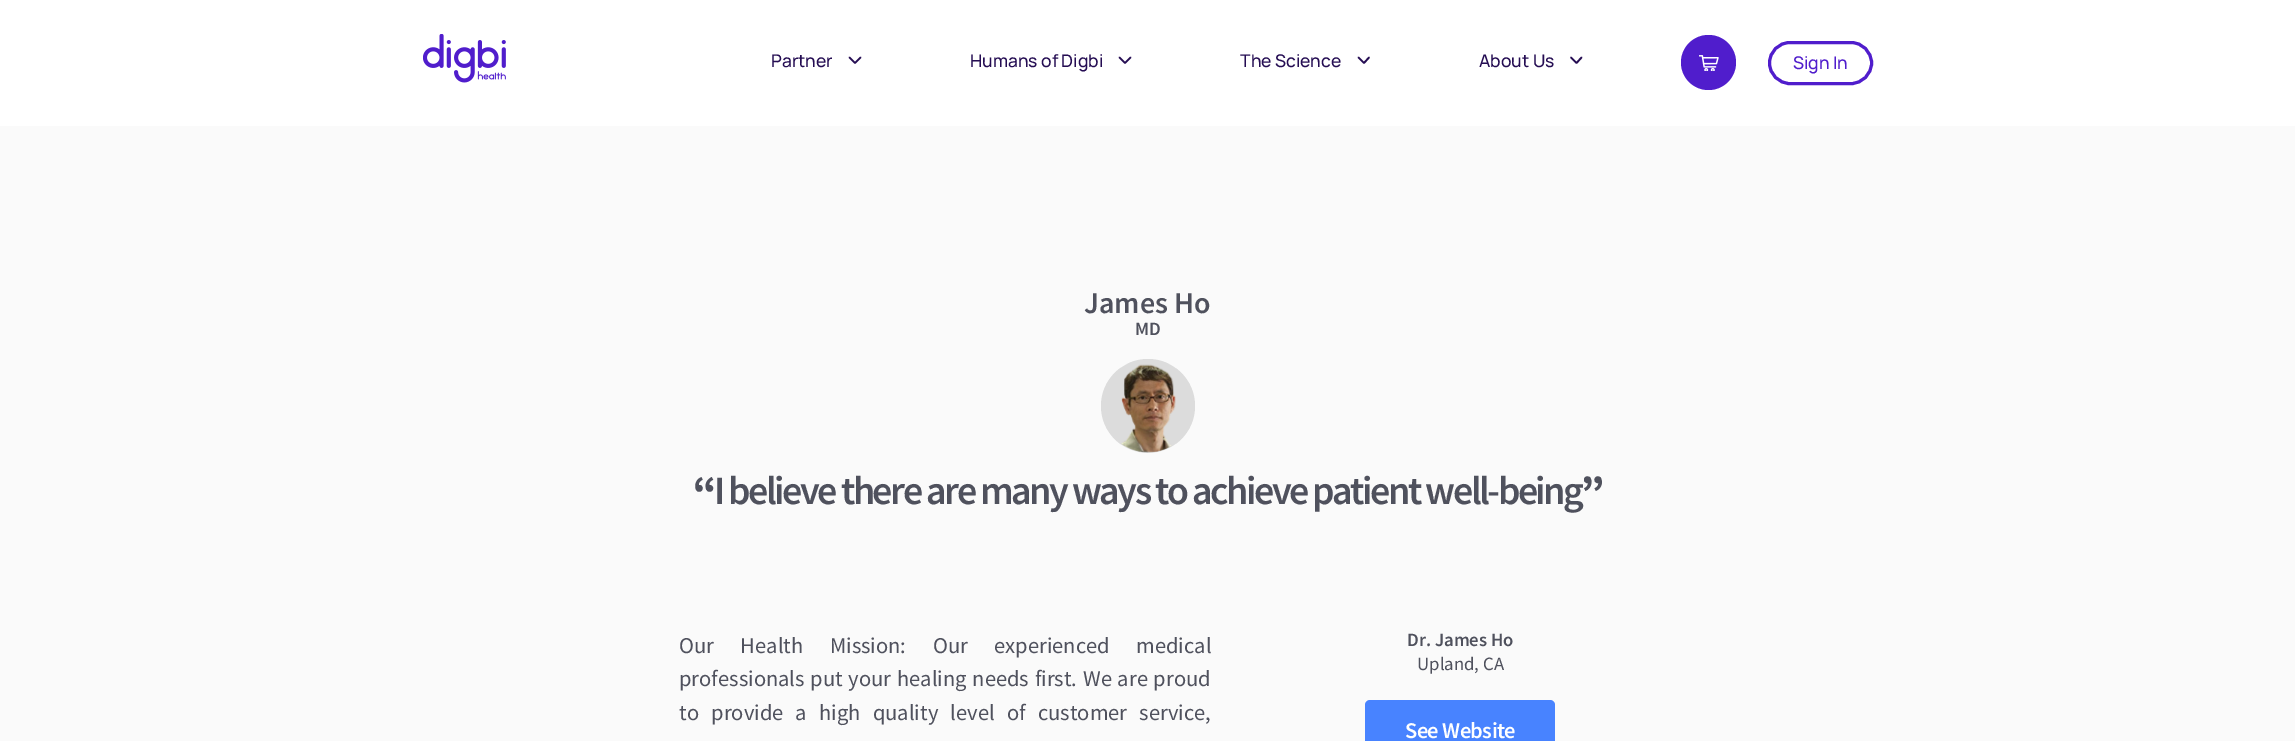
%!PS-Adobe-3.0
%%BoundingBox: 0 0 2295 741
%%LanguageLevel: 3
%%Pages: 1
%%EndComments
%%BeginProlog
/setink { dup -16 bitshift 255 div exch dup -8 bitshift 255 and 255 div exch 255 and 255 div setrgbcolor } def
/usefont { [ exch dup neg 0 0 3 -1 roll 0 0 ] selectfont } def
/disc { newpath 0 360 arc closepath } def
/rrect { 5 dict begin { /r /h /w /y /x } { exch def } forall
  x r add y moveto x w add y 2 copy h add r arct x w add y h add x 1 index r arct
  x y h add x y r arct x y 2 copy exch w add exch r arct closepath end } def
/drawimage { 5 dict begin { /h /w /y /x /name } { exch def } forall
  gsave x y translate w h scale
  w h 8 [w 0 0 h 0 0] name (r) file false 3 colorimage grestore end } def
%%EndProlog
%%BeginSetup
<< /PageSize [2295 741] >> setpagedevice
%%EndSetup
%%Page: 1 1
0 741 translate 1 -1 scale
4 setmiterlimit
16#FFFFFF setink
0 0 2295 741 rectfill
(img1.raw) 423 34 83 49 drawimage
/Manrope-Medium 17.5 usefont
16#250D53 setink
771 67 moveto (Partner) show
1.7 setlinewidth
1 setlinecap
1 setlinejoin
849.5 57.5 moveto 855 63 lineto 860.5 57.5 lineto stroke
970 67 moveto (Humans of Digbi) show
1119.5 57.5 moveto 1125 63 lineto 1130.5 57.5 lineto stroke
1240 67 moveto (The Science) show
1358.5 57.5 moveto 1364 63 lineto 1369 57.5 lineto stroke
1479 67 moveto (About Us) show
1571 57.5 moveto 1576.5 63 lineto 1581.5 57.5 lineto stroke
16#501DCC setink
1708.5 62.5 27.5 disc fill
(img2.raw) 1699 55 20 16 drawimage
3 setlinewidth
0 setlinecap
0 setlinejoin
1769.5 42.5 102 41 20.5 rrect stroke
1793 69 moveto (Sign In) show
16#FAFAFA setink
0 126 2295 615 rectfill
/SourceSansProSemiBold-SemiBold 30 usefont
16#4F515D setink
1084 313 moveto (James Ho) show
/SourceSansProSemiBold-SemiBold 18.75 usefont
1135 335 moveto (MD) show
16#DCDCDC setink
1148 406 47 disc fill
(img3.raw) 1121 364 55 89 drawimage
/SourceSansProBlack-Black 40 usefont
16#4F515D setink
693 504 moveto -2.5 0 (“) ashow
/SourceSansProSemiBold-SemiBold 40 usefont
714 504 moveto -2.5 0 (I believe there are many ways to achieve patient well-being) ashow
/SourceSansProBlack-Black 40 usefont
1581 504 moveto -2.5 0 (”) ashow
/SourceSansPro-Regular 22.5 usefont
679 653 moveto 22 0 32 (Our Health Mission: Our experienced medical) widthshow
679 686 moveto 1.25 0 32 (professionals put your healing needs first. We are proud) widthshow
679 720 moveto 7.75 0 32 (to provide a high quality level of customer service,) widthshow
/SourceSansProSemiBold-SemiBold 18.75 usefont
1407 646 moveto (Dr. James Ho) show
/SourceSansPro-Regular 18.75 usefont
1417 670 moveto (Upland, CA) show
16#4883FF setink
1365 700 190 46 5 rrect fill
/SourceSansProSemiBold-SemiBold 22.5 usefont
16#FFFFFF setink
1405 738 moveto -0.6 0 (See Website) ashow
showpage
%%EOF
